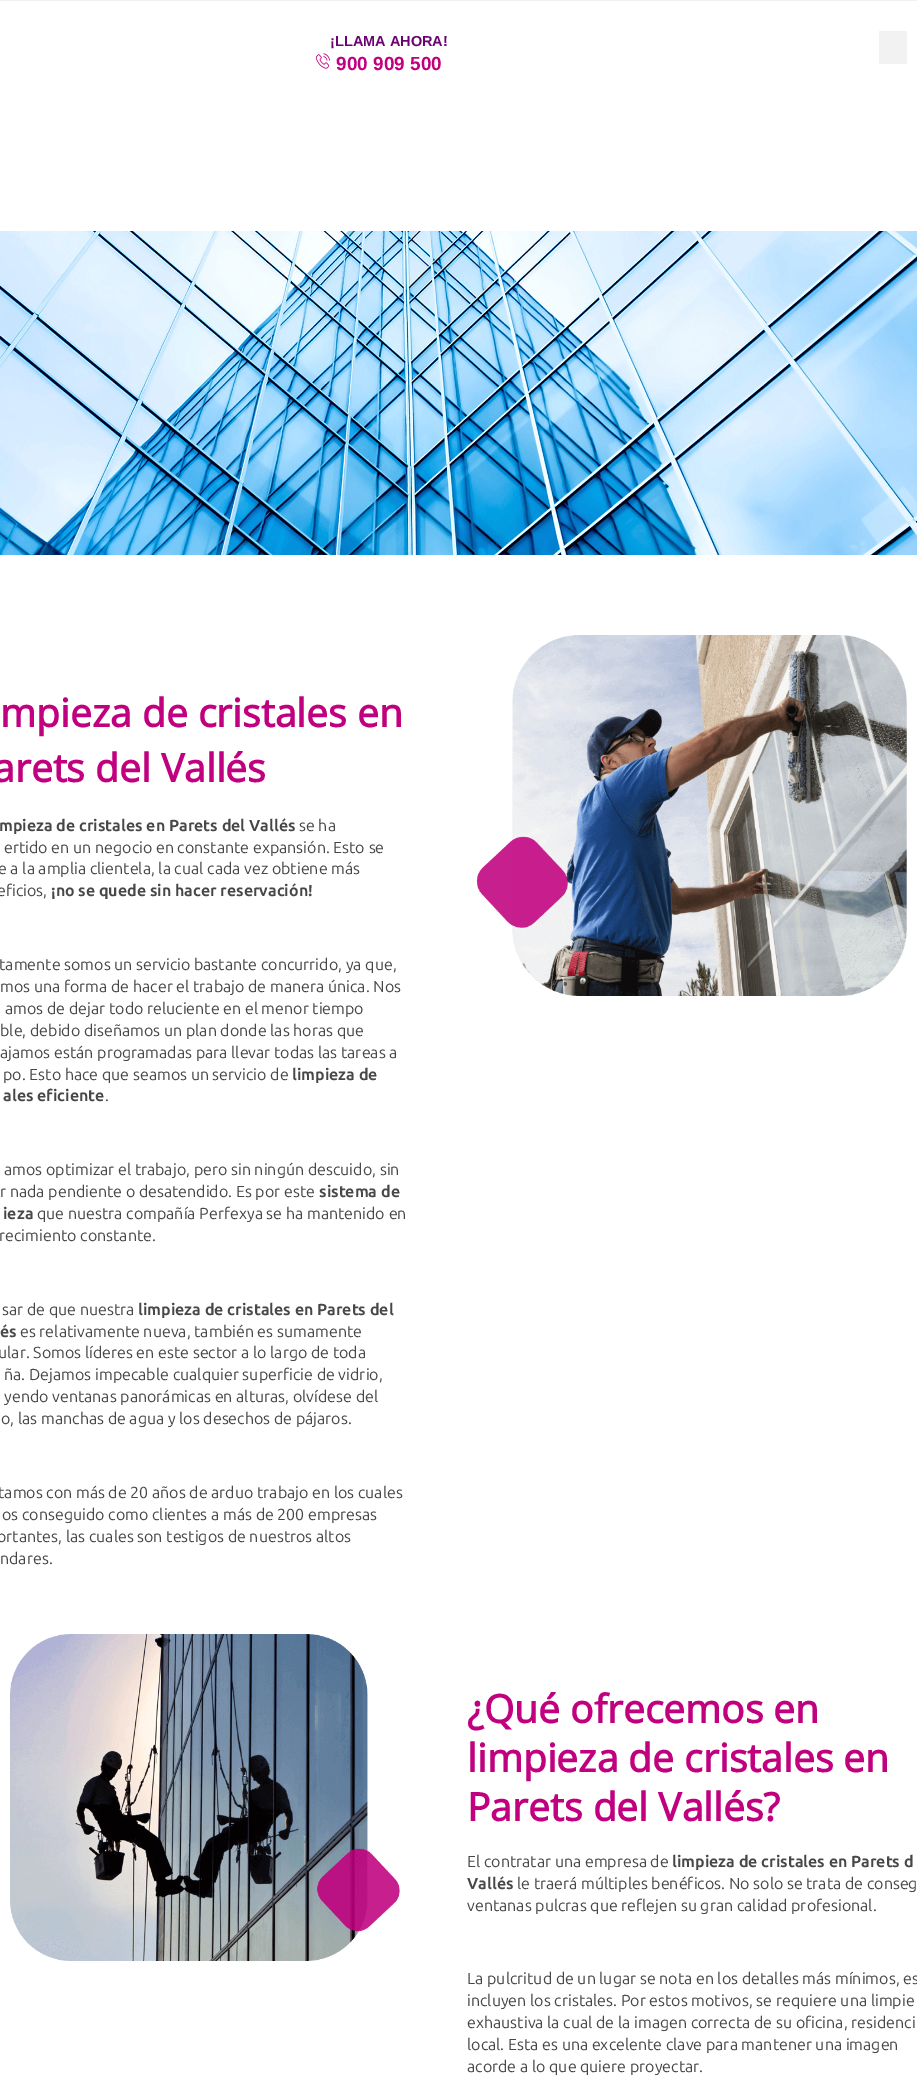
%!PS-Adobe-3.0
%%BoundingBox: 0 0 917 2081
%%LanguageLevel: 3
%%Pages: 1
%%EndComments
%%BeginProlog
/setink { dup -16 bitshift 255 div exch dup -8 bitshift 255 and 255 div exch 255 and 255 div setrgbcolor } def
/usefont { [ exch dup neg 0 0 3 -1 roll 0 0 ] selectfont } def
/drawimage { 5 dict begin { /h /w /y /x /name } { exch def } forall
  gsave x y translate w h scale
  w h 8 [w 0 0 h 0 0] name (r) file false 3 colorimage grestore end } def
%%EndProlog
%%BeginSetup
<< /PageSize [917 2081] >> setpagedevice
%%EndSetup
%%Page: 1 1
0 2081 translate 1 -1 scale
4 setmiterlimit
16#FFFFFF setink
0 0 917 2081 rectfill
16#F2F2F2 setink
0 0 917 1 rectfill
(img1.raw) 316 53 14 16 drawimage
/LiberationSans-Bold 14.5 usefont
16#6A0472 setink
330 46 moveto (¡LLAMA AHORA!) show
/LiberationSans-Bold 19 usefont
16#C1007F setink
336 70 moveto (900 909 500) show
16#F2F2F2 setink
879 31 28 33 rectfill
(img2.raw) 0 231 917 324 drawimage
/OpenSans-Bold 39 usefont
16#C1007F setink
0 727 moveto (mpieza de cristales en) show
-7 782 moveto (arets del Vallés) show
/Ubuntu-Bold 16 usefont
16#474747 setink
-1 831 moveto (mpieza de cristales en Parets del Vallés) show
/Ubuntu-Regular 16 usefont
[
    [(se ha) 299 831]
    [(ertido en un negocio en constante expansión. Esto se) 4 853]
    [(e a la amplia clientela, la cual cada vez obtiene más) -2 874]
    [(eficios,) -3 896]
] { aload pop moveto show } forall
/Ubuntu-Bold 16 usefont
51 896 moveto (¡no se quede sin hacer reservación!) show
/Ubuntu-Regular 16 usefont
[
    [(tamente somos un servicio bastante concurrido, ya que,) -1 970]
    [(mos una forma de hacer el trabajo de manera única. Nos) 0 992]
    [(amos de dejar todo reluciente en el menor tiempo) 5 1014]
    [(ble, debido diseñamos un plan donde las horas que) 0 1036]
    [(ajamos están programadas para llevar todas las tareas a) 0 1058]
    [(po. Esto hace que seamos un servicio de) 3 1080]
] { aload pop moveto show } forall
/Ubuntu-Bold 16 usefont
292 1080 moveto (limpieza de) show
3 1101 moveto (ales eficiente) show
/Ubuntu-Regular 16 usefont
[
    [(.) 105 1101]
    [(amos optimizar el trabajo, pero sin ningún descuido, sin) 4 1175]
    [(r nada pendiente o desatendido. Es por este) 0 1197]
] { aload pop moveto show } forall
/Ubuntu-Bold 16 usefont
319 1197 moveto (sistema de) show
3 1219 moveto (ieza) show
/Ubuntu-Regular 16 usefont
[
    [(que nuestra compañía Perfexya se ha mantenido en) 37 1219]
    [(recimiento constante.) -1 1241]
    [(sar de que nuestra) 2 1315]
] { aload pop moveto show } forall
/Ubuntu-Bold 16 usefont
138 1315 moveto (limpieza de cristales en Parets del) show
0 1337 moveto (és) show
/Ubuntu-Regular 16 usefont
[
    [(es relativamente nueva, también es sumamente) 20 1337]
    [(ular. Somos líderes en este sector a lo largo de toda) -2 1358]
    [(ña. Dejamos impecable cualquier superficie de vidrio,) 4 1380]
    [(yendo ventanas panorámicas en alturas, olvídese del) 4 1402]
    [(o, las manchas de agua y los desechos de pájaros.) 1 1424]
    [(tamos con más de 20 años de arduo trabajo en los cuales) -2 1498]
    [(os conseguido como clientes a más de 200 empresas) 2 1520]
    [(ortantes, las cuales son testigos de nuestros altos) -3 1542]
    [(ndares.) 0 1564]
] { aload pop moveto show } forall
(img3.raw) 477 635 430 361 drawimage
(img4.raw) 10 1634 390 327 drawimage
/OpenSans-Bold 39 usefont
16#C1007F setink
[
    [(¿Qué ofrecemos en) 467 1723]
    [(limpieza de cristales en) 467 1772]
    [(Parets del Vallés?) 467 1821]
] { aload pop moveto show } forall
/Ubuntu-Regular 16 usefont
16#474747 setink
467 1867 moveto (El contratar una empresa de) show
/Ubuntu-Bold 16 usefont
672 1867 moveto (limpieza de cristales en Parets d) show
467 1889 moveto (Vallés) show
/Ubuntu-Regular 16 usefont
[
    [(le traerá múltiples benéficos. No solo se trata de conseg) 517 1889]
    [(ventanas pulcras que reflejen su gran calidad profesional.) 467 1911]
    [(La pulcritud de un lugar se nota en los detalles más mínimos, es) 467 1984]
    [(incluyen los cristales. Por estos motivos, se requiere una limpie) 467 2006]
    [(exhaustiva la cual de la imagen correcta de su oficina, residenci) 467 2028]
    [(local. Esta es una excelente clave para mantener una imagen) 467 2050]
    [(acorde a lo que quiere proyectar.) 467 2072]
] { aload pop moveto show } forall
showpage
%%EOF
